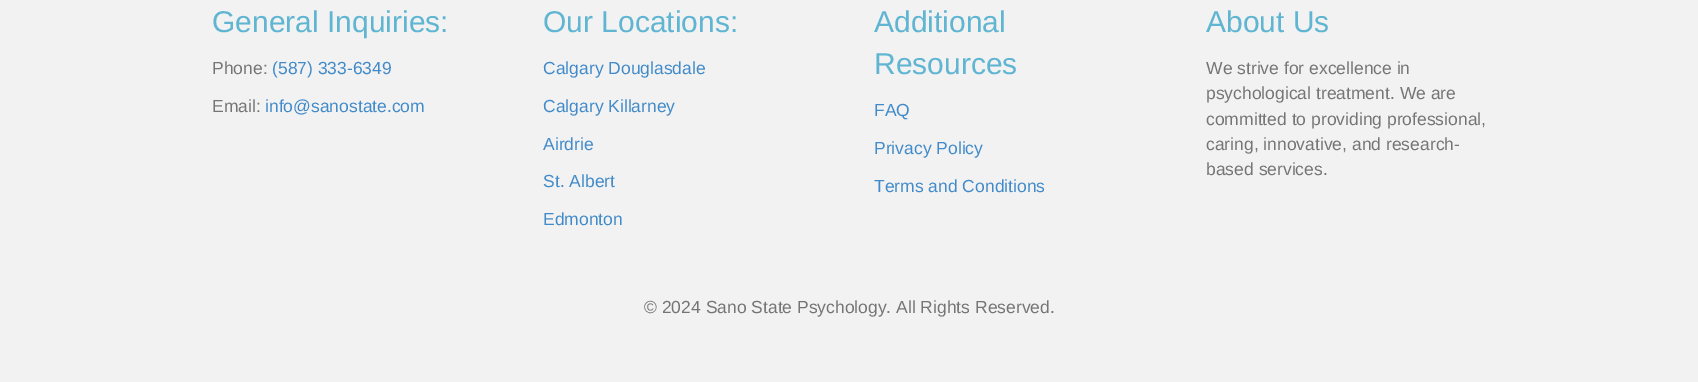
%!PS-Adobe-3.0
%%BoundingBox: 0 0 1698 382
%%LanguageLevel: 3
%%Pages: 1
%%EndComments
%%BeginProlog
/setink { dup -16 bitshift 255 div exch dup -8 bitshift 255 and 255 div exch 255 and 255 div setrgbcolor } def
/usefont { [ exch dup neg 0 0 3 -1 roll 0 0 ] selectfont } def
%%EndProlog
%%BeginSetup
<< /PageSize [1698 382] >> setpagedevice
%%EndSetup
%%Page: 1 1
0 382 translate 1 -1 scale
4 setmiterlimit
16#F2F2F2 setink
0 0 1698 382 rectfill
/LiberationSans-Regular 30 usefont
16#5FB5D2 setink
212 32 moveto (General Inquiries:) show
/LiberationSans-Regular 17.5 usefont
16#757575 setink
212 74 moveto (Phone:) show
16#428BCA setink
272 74 moveto (\(587\) 333-6349) show
16#757575 setink
212 112 moveto (Email:) show
16#428BCA setink
265 112 moveto (info@sanostate.com) show
/LiberationSans-Regular 30 usefont
16#5FB5D2 setink
543 32 moveto (Our Locations:) show
/LiberationSans-Regular 17.5 usefont
16#428BCA setink
[
    [(Calgary Douglasdale) 543 74]
    [(Calgary Killarney) 543 112]
    [(Airdrie) 543 150]
    [(St. Albert) 543 187]
    [(Edmonton) 543 225]
] { aload pop moveto show } forall
/LiberationSans-Regular 30 usefont
16#5FB5D2 setink
874 32 moveto (Additional) show
874 74 moveto (Resources) show
/LiberationSans-Regular 17.5 usefont
16#428BCA setink
[
    [(FAQ) 874 116]
    [(Privacy Policy) 874 154]
    [(Terms and Conditions) 874 192]
] { aload pop moveto show } forall
/LiberationSans-Regular 30 usefont
16#5FB5D2 setink
1206 32 moveto (About Us) show
/LiberationSans-Regular 17.5 usefont
16#757575 setink
[
    [(We strive for excellence in) 1206 74]
    [(psychological treatment. We are) 1206 99]
    [(committed to providing professional,) 1206 125]
    [(caring, innovative, and research-) 1206 150]
    [(based services.) 1206 175]
    [(© 2024 Sano State Psychology. All Rights Reserved.) 644 313]
] { aload pop moveto show } forall
showpage
%%EOF
